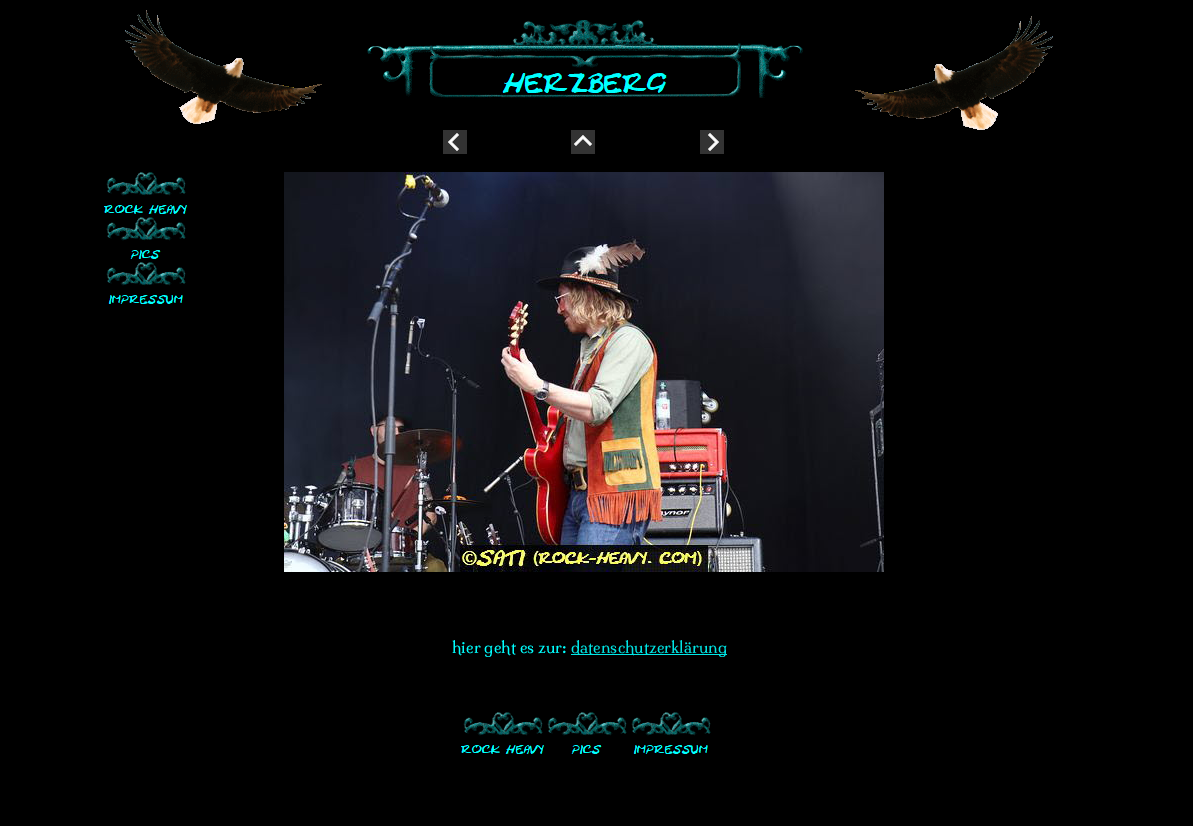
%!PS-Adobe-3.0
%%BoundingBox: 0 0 1193 826
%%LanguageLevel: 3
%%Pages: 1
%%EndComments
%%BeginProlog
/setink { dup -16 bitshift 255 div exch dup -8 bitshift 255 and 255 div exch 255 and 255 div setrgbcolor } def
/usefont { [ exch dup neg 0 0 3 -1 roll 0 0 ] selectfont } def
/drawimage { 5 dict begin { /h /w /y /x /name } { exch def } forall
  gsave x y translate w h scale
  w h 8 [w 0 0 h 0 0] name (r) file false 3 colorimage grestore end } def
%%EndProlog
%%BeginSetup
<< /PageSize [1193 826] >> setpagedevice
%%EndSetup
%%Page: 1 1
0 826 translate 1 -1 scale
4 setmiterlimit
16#000000 setink
0 0 1193 826 rectfill
(img1.raw) 125 10 197 114 drawimage
(img2.raw) 367 19 436 79 drawimage
(img3.raw) 855 16 198 114 drawimage
(img4.raw) 443 130 24 24 drawimage
(img5.raw) 571 130 24 24 drawimage
(img6.raw) 700 130 24 24 drawimage
(img7.raw) 104 172 83 42 drawimage
(img8.raw) 106 217 80 42 drawimage
(img9.raw) 106 262 80 42 drawimage
(img10.raw) 284 172 600 400 drawimage
/Milonga-Regular 16 usefont
16#00FFFF setink
452 653 moveto (hier geht es zur:) show
16#00E6E6 setink
571 654 156 1 rectfill
571 653 moveto (datenschutzerklärung) show
(img7.raw) 461 712 83 42 drawimage
(img8.raw) 547 712 80 42 drawimage
(img9.raw) 631 712 80 42 drawimage
showpage
%%EOF
